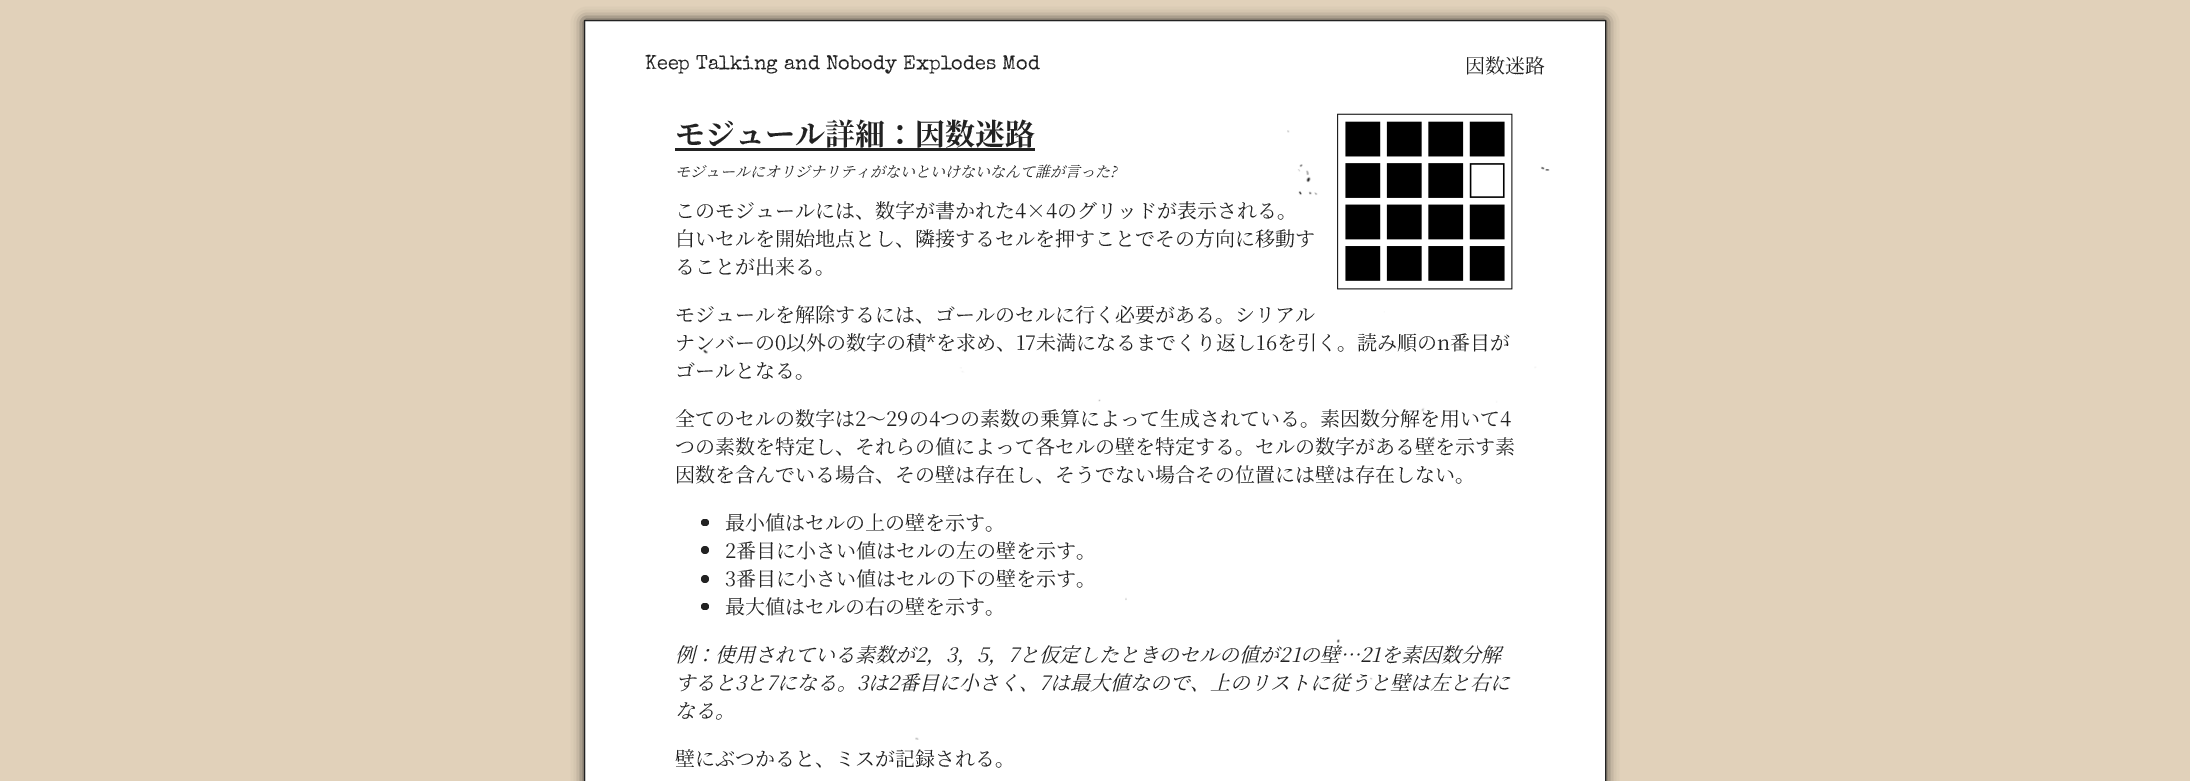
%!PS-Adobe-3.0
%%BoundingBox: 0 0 2190 781
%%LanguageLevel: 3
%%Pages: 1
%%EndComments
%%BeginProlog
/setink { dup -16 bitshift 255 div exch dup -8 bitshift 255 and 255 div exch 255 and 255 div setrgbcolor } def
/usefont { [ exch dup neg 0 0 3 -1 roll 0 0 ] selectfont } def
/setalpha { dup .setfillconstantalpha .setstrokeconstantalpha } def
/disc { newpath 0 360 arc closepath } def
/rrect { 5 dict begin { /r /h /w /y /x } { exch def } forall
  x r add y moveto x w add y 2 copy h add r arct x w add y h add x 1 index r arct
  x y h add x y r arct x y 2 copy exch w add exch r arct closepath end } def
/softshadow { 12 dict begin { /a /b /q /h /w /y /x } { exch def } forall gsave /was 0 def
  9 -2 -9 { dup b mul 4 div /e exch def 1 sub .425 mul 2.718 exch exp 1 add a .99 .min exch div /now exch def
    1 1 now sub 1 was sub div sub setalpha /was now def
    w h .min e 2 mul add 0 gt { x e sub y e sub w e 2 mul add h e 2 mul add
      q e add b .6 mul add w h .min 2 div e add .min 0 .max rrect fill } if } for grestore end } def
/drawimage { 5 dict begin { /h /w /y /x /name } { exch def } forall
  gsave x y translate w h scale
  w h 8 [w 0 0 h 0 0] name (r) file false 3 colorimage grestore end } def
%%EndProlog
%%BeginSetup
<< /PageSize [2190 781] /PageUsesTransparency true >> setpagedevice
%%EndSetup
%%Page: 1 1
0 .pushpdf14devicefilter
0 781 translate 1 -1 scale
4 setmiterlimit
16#E1D1BA setink
0 0 2190 781 rectfill
16#222222 setink
584 20 1022 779 0 6 1 softshadow
16#FFFFFF setink
585 21 1020 760 rectfill
(img1.raw) 702 130 848 610 drawimage
16#222222 setink
584.5 20.5 1021 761 rectstroke
/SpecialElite-Regular 20 usefont
645 69 moveto (Keep Talking and Nobody Explodes Mod) show
/NotoSerifJP-Regular 20 usefont
1465 73 moveto (因数迷路) show
/NotoSerifJP-Bold 30 usefont
675 145 moveto (モジュール詳細：因数迷路) show
675 148 360 3 rectfill
(img2.raw) 1337 113 176 177 drawimage
/NotoSerifJP-Italic 15 usefont
675 177 moveto (モジュールにオリジナリティがないといけないなんて誰が言った?) show
/NotoSerifJP-Regular 20 usefont
[
    [(このモジュールには、数字が書かれた4×4のグリッドが表示される。) 675 218]
    [(白いセルを開始地点とし、隣接するセルを押すことでその方向に移動す) 675 246]
    [(ることが出来る。) 675 274]
    [(モジュールを解除するには、ゴールのセルに行く必要がある。シリアル) 675 322]
    [(ナンバーの0以外の数字の積*を求め、17未満になるまでくり返し16を引く。読み順のn番目が) 675 350]
    [(ゴールとなる。) 675 378]
    [(全てのセルの数字は2～29の4つの素数の乗算によって生成されている。素因数分解を用いて4) 675 426]
    [(つの素数を特定し、それらの値によって各セルの壁を特定する。セルの数字がある壁を示す素) 675 454]
    [(因数を含んでいる場合、その壁は存在し、そうでない場合その位置には壁は存在しない。) 675 482]
] { aload pop moveto show } forall
701 519 8 7 3.5 rrect fill
725 530 moveto (最小値はセルの上の壁を示す。) show
705 550 4 disc fill
725 558 moveto (2番目に小さい値はセルの左の壁を示す。) show
705 579 4 disc fill
725 586 moveto (3番目に小さい値はセルの下の壁を示す。) show
701 603 8 7 3.5 rrect fill
725 614 moveto (最大値はセルの右の壁を示す。) show
/NotoSerifJP-Italic 20 usefont
[
    [(例：使用されている素数が2，3，5，7と仮定したときのセルの値が21の壁…21を素因数分解) 675 662]
    [(すると3と7になる。3は2番目に小さく、7は最大値なので、上のリストに従うと壁は左と右に) 675 690]
    [(なる。) 675 718]
] { aload pop moveto show } forall
/NotoSerifJP-Regular 20 usefont
675 766 moveto (壁にぶつかると、ミスが記録される。) show
.poppdf14devicefilter showpage
%%EOF
